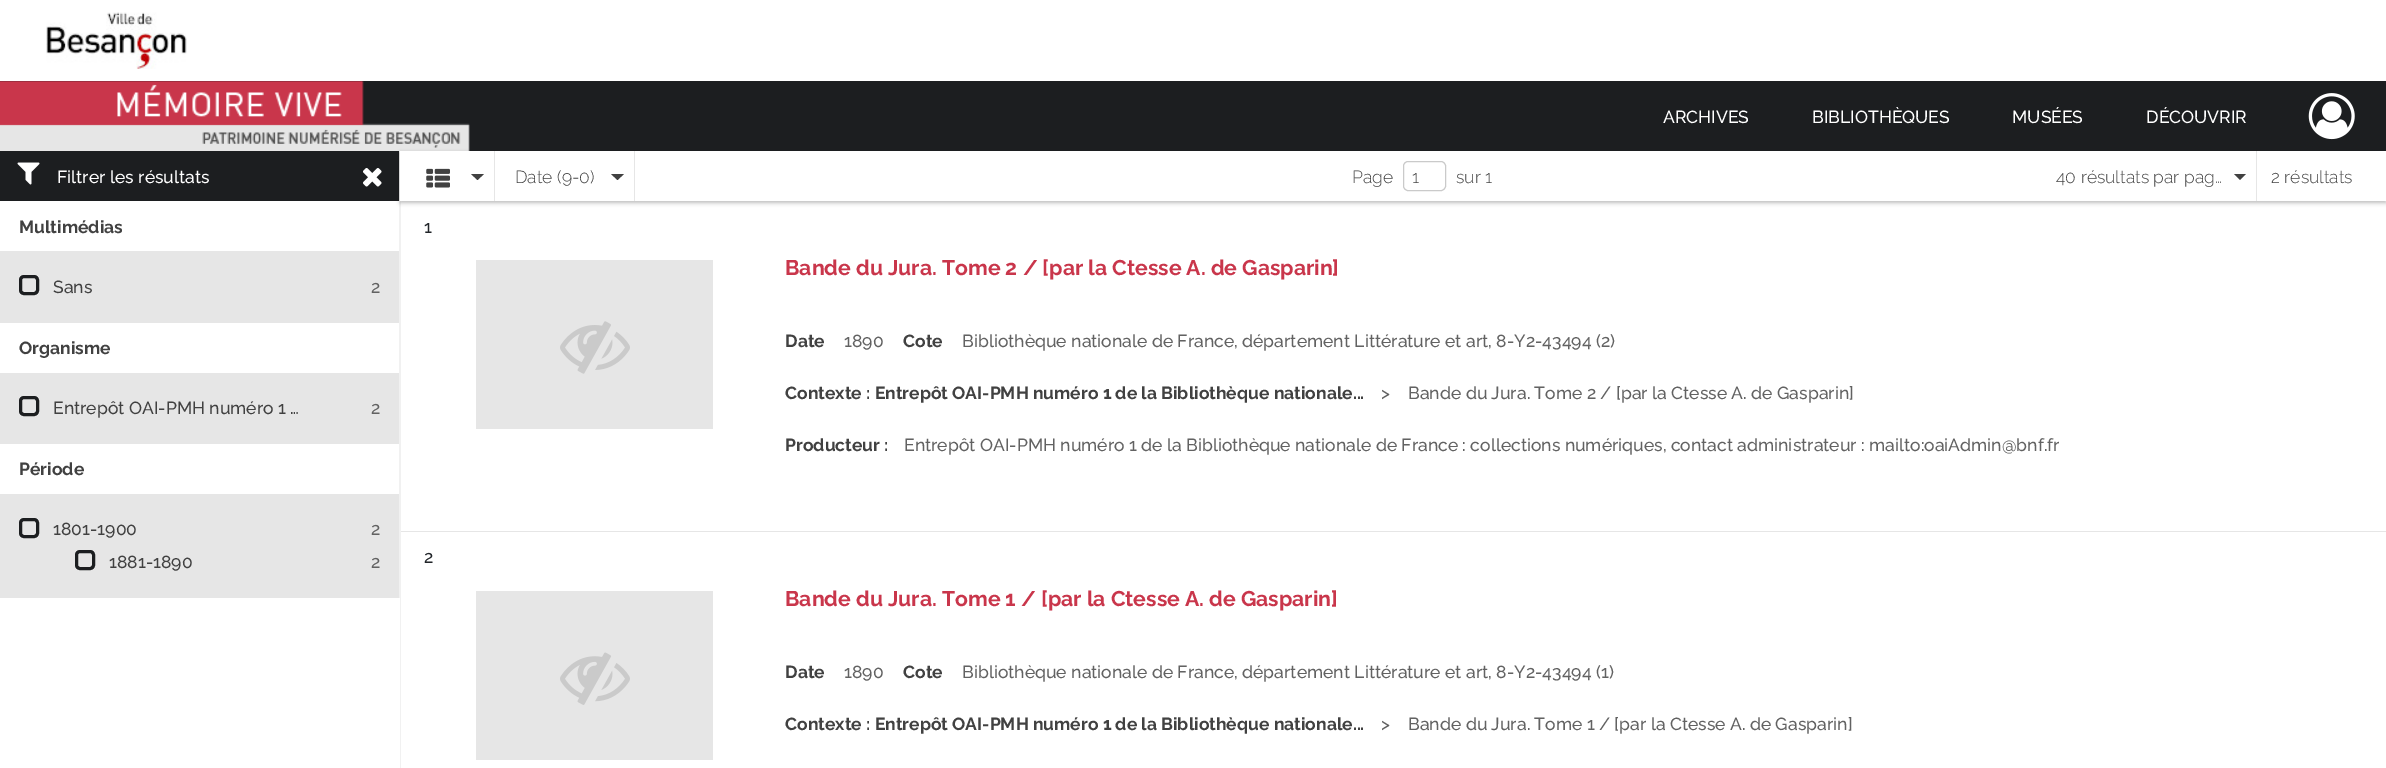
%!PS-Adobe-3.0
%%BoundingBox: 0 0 2386 768
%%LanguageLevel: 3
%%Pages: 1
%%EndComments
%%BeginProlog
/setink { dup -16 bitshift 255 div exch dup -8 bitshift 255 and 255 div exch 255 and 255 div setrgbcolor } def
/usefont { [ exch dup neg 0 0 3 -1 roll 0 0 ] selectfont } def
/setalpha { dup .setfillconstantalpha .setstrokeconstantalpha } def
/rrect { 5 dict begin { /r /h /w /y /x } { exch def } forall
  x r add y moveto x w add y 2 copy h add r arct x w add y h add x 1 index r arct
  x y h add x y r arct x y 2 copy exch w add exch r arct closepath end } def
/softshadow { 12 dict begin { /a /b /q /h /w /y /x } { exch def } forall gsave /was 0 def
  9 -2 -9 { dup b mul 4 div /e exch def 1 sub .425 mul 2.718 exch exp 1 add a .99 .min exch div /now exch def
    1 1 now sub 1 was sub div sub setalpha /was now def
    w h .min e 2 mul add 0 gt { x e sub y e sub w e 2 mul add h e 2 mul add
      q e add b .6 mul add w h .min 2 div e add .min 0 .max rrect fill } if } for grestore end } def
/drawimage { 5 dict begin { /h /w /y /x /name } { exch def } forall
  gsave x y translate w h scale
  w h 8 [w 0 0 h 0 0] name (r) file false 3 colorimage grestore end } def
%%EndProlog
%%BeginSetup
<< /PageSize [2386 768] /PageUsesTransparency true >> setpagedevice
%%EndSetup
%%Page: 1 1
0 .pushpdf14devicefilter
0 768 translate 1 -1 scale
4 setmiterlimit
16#FFFFFF setink
0 0 2386 768 rectfill
(img1.raw) 46 12 141 57 drawimage
16#1C1E20 setink
0 81 2386 70 rectfill
(img2.raw) 0 81 470 70 drawimage
/Raleway-Medium 17.5 usefont
16#FFFFFF setink
[
    [(ARCHIVES) 1663 123]
    [(BIBLIOTHÈQUES) 1812 123]
    [(MUSÉES) 2012 123]
    [(DÉCOUVRIR) 2146 123]
] { aload pop moveto show } forall
(img3.raw) 2308 93 47 47 drawimage
[
    [0 251 399 347 16#E6E6E6]
    [399 151 1 447 16#F1F1F1]
    [0 151 399 50 16#1C1E20]
] { aload pop setink rectfill } forall
(img4.raw) 17 162 23 23 drawimage
16#FFFFFF setink
57 183 moveto (Filtrer les résultats) show
(img5.raw) 363 168 19 19 drawimage
/Raleway-Bold 17.5 usefont
16#414141 setink
19 233 moveto (Multimédias) show
16#1C1E20 setink
3 setlinewidth
20.5 276.5 17 17 3.5 rrect stroke
/Raleway-Medium 17.5 usefont
16#414141 setink
53 293 moveto (Sans) show
16#626262 setink
371 293 moveto (2) show
16#FFFFFF setink
0 323 399 50 rectfill
/Raleway-Bold 17.5 usefont
16#414141 setink
19 354 moveto (Organisme) show
16#1C1E20 setink
20.5 397.5 17 17 3.5 rrect stroke
/Raleway-Medium 17.5 usefont
16#414141 setink
53 414 moveto (Entrepôt OAI-PMH numéro 1 …) show
16#626262 setink
371 414 moveto (2) show
16#FFFFFF setink
0 444 399 50 rectfill
/Raleway-Bold 17.5 usefont
16#414141 setink
19 475 moveto (Période) show
16#1C1E20 setink
20.5 519.5 17 17 3.5 rrect stroke
/Raleway-Medium 17.5 usefont
16#414141 setink
53 535 moveto (1801-1900) show
16#626262 setink
371 535 moveto (2) show
16#1C1E20 setink
76.5 551.5 17 17 3.5 rrect stroke
16#414141 setink
109 568 moveto (1881-1890) show
16#626262 setink
371 568 moveto (2) show
16#F1F1F1 setink
400 201 1 567 rectfill
16#000000 setink
400 153 1986 50 0 2 0.25 softshadow
16#FFFFFF setink
400 151 1986 50 rectfill
16#E6E6E6 setink
494 151 1 50 rectfill
(img6.raw) 426 168 24 20 drawimage
16#414141 setink
471 174 moveto 484 174 lineto 477.5 180 lineto closepath fill
16#E6E6E6 setink
634 151 1 50 rectfill
/Raleway-Light 17.5 usefont
16#414141 setink
515 183 moveto (Date \(9-0\)) show
611 174 moveto 624 174 lineto 617.5 180 lineto closepath fill
1352 183 moveto (Page) show
16#CACACA setink
1 setlinewidth
1403.5 161.5 42 29 4.5 rrect stroke
16#414141 setink
1412 183 moveto (1) show
1456 183 moveto (sur 1) show
16#E6E6E6 setink
2256 151 1 50 rectfill
16#414141 setink
2056 183 moveto (40 résultats par pag…) show
2234 174 moveto 2246 174 lineto 2240 180 lineto closepath fill
2271 183 moveto (2 résultats) show
16#E6E6E6 setink
401 531 1985 1 rectfill
/Raleway-Medium 17.5 usefont
16#212529 setink
424 233 moveto (1) show
16#E6E6E6 setink
476 260 237 169 rectfill
(img7.raw) 560 321 70 53 drawimage
/Raleway-Bold 21.25 usefont
16#C9364B setink
785 275 moveto (Bande du Jura. Tome 2 / [par la Ctesse A. de Gasparin]) show
/Raleway-Bold 17.5 usefont
16#414141 setink
785 347 moveto (Date) show
/Raleway-Medium 17.5 usefont
16#626262 setink
844 347 moveto (1890) show
/Raleway-Bold 17.5 usefont
16#414141 setink
903 347 moveto (Cote) show
/Raleway-Medium 17.5 usefont
16#626262 setink
962 347 moveto (Bibliothèque nationale de France, département Littérature et art, 8-Y2-43494 \(2\)) show
/Raleway-Bold 17.5 usefont
16#414141 setink
785 399 moveto (Contexte : Entrepôt OAI-PMH numéro 1 de la Bibliothèque nationale...) show
/Raleway-Medium 17.5 usefont
16#626262 setink
1381 399 moveto (>) show
1408 399 moveto (Bande du Jura. Tome 2 / [par la Ctesse A. de Gasparin]) show
/Raleway-Bold 17.5 usefont
16#414141 setink
785 451 moveto (Producteur :) show
/Raleway-Medium 17.5 usefont
16#626262 setink
904 451 moveto (Entrepôt OAI-PMH numéro 1 de la Bibliothèque nationale de France : collections numériques, contact administrateur : mailto:oaiAdmin@bnf.fr) show
16#212529 setink
424 563 moveto (2) show
16#E6E6E6 setink
476 591 237 169 rectfill
(img8.raw) 560 652 70 53 drawimage
/Raleway-Bold 21.25 usefont
16#C9364B setink
785 606 moveto (Bande du Jura. Tome 1 / [par la Ctesse A. de Gasparin]) show
/Raleway-Bold 17.5 usefont
16#414141 setink
785 678 moveto (Date) show
/Raleway-Medium 17.5 usefont
16#626262 setink
844 678 moveto (1890) show
/Raleway-Bold 17.5 usefont
16#414141 setink
903 678 moveto (Cote) show
/Raleway-Medium 17.5 usefont
16#626262 setink
962 678 moveto (Bibliothèque nationale de France, département Littérature et art, 8-Y2-43494 \(1\)) show
/Raleway-Bold 17.5 usefont
16#414141 setink
785 730 moveto (Contexte : Entrepôt OAI-PMH numéro 1 de la Bibliothèque nationale...) show
/Raleway-Medium 17.5 usefont
16#626262 setink
1381 730 moveto (>) show
1408 730 moveto (Bande du Jura. Tome 1 / [par la Ctesse A. de Gasparin]) show
.poppdf14devicefilter showpage
%%EOF
